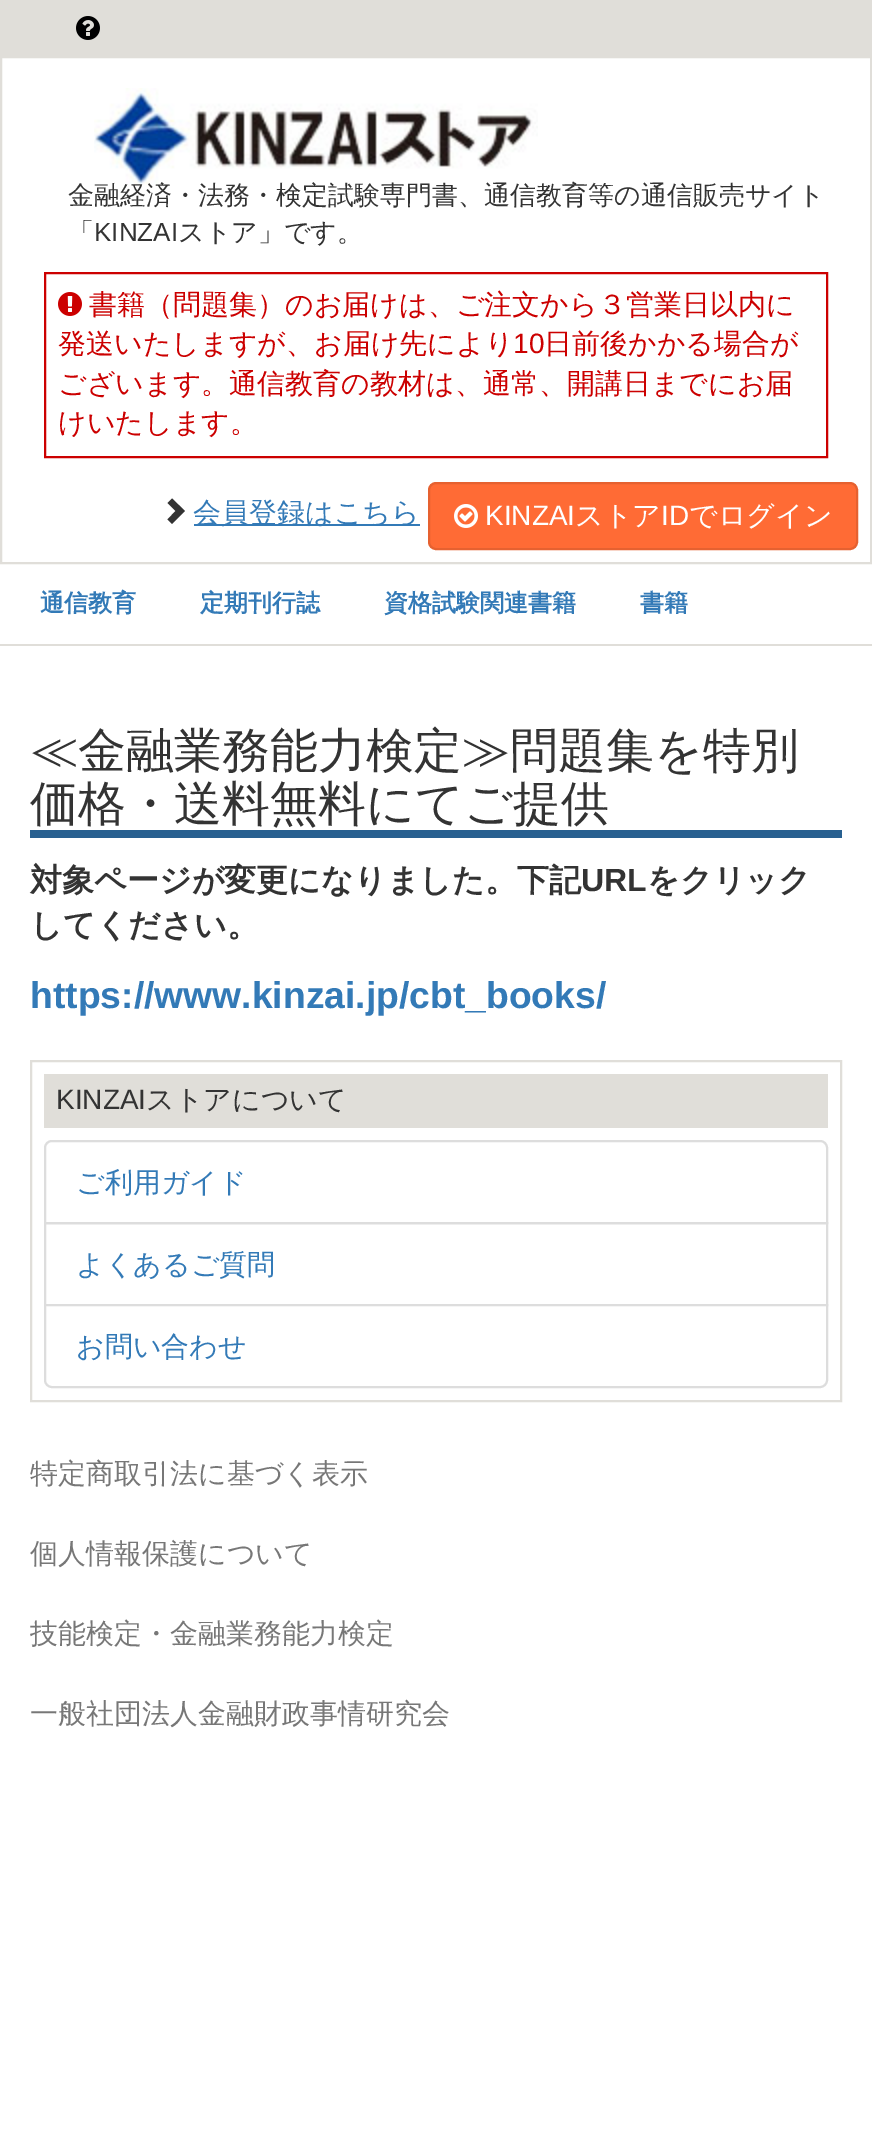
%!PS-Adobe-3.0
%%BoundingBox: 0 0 872 2149
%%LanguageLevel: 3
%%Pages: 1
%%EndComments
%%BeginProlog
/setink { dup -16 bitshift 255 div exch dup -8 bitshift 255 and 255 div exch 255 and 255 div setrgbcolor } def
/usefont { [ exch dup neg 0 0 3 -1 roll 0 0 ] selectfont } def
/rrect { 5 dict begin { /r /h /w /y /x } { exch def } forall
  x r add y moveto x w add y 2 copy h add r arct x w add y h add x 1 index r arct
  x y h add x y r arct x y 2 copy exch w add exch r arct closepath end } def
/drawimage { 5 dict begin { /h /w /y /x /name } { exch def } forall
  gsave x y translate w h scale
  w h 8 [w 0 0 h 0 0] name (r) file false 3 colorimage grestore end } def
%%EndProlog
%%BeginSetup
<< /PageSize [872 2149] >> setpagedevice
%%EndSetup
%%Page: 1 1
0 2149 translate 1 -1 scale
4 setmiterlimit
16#FFFFFF setink
0 0 872 2149 rectfill
16#E0DED9 setink
0 0 872 56 rectfill
(img1.raw) 76 16 24 24 drawimage
2 setlinewidth
1 57 870 506 rectstroke
(img2.raw) 94 88 444 97 drawimage
/WenQuanYiZenHei-Medium 26 usefont
16#333333 setink
68 204 moveto (金融経済・法務・検定試験専門書、通信教育等の通信販売サイト) show
68 241 moveto (「) show
/LiberationSans-Regular 26 usefont
94 241 moveto (KINZAI) show
/WenQuanYiZenHei-Medium 26 usefont
178 241 moveto (ストア」です。) show
16#CC0000 setink
45 273 782 184 rectstroke
(img3.raw) 58 292 24 24 drawimage
/WenQuanYiZenHei-Medium 28 usefont
89 314 moveto (書籍（問題集）のお届けは、ご注文から３営業日以内に) show
58 353 moveto (発送いたしますが、お届け先により) show
/LiberationSans-Regular 28 usefont
513 353 moveto (10) show
/WenQuanYiZenHei-Medium 28 usefont
[
    [(日前後かかる場合が) 544 353]
    [(ございます。通信教育の教材は、通常、開講日までにお届) 58 393]
    [(けいたします。) 58 432]
] { aload pop moveto show } forall
16#333333 setink
185 511 moveto 172 524 lineto 167.5 519.5 lineto 175.5 511 lineto 167.5 503 lineto 172 498.5 lineto closepath fill
16#337AB7 setink
194 524 226 2 rectfill
193 522 moveto (会員登録はこちら) show
16#FF6B35 setink
429 483 428 66 7 rrect gsave fill grestore
16#E66130 setink
stroke
(img4.raw) 454 504 24 24 drawimage
/LiberationSans-Regular 28 usefont
16#FFFFFF setink
485 525 moveto (KINZAI) show
/WenQuanYiZenHei-Medium 28 usefont
575 525 moveto (ストア) show
/LiberationSans-Regular 28 usefont
661 525 moveto (ID) show
/WenQuanYiZenHei-Medium 28 usefont
689 525 moveto (でログイン) show
16#E0DED9 setink
0 644 872 2 rectfill
/WenQuanYiZenHei-Bold 24 usefont
16#337AB7 setink
[
    [(通信教育) 40 611]
    [(定期刊行誌) 200 611]
    [(資格試験関連書籍) 384 611]
    [(書籍) 640 611]
] { aload pop moveto show } forall
16#286090 setink
30 830 812 8 rectfill
/WenQuanYiZenHei-Medium 48 usefont
16#333333 setink
30 767 moveto (≪金融業務能力検定≫問題集を特別) show
30 820 moveto (価格・送料無料にてご提供) show
/WenQuanYiZenHei-Bold 32 usefont
30 891 moveto (対象ページが変更になりました。下記) show
/LiberationSans-Bold 32 usefont
581 891 moveto (URL) show
/WenQuanYiZenHei-Bold 32 usefont
647 891 moveto (をクリック) show
30 936 moveto (してください。) show
/LiberationSans-Bold 37.3 usefont
16#337AB7 setink
30 1008 moveto (https://www.kinzai.jp/cbt_books/) show
16#E0DED9 setink
31 1061 810 340 rectstroke
44 1074 784 54 rectfill
/LiberationSans-Regular 28 usefont
16#333333 setink
56 1109 moveto (KINZAI) show
/WenQuanYiZenHei-Medium 28 usefont
146 1109 moveto (ストアについて) show
16#DDDDDD setink
52 1141 moveto 820 1141 lineto 824 1141 827 1144 827 1148 curveto 827 1223 lineto 45 1223 lineto 45 1148 lineto 45 1144 48 1141 52 1141 curveto closepath stroke
16#337AB7 setink
76 1192 moveto (ご利用ガイド) show
16#DDDDDD setink
45 1223 782 82 rectstroke
16#337AB7 setink
76 1274 moveto (よくあるご質問) show
16#FFFFFF setink
45 1305 moveto 827 1305 lineto 827 1380 lineto 827 1384 824 1387 820 1387 curveto 52 1387 lineto 48 1387 45 1384 45 1380 curveto closepath gsave fill grestore
16#DDDDDD setink
stroke
16#337AB7 setink
76 1356 moveto (お問い合わせ) show
16#777777 setink
[
    [(特定商取引法に基づく表示) 30 1483]
    [(個人情報保護について) 30 1563]
    [(技能検定・金融業務能力検定) 30 1643]
    [(一般社団法人金融財政事情研究会) 30 1723]
] { aload pop moveto show } forall
showpage
%%EOF
